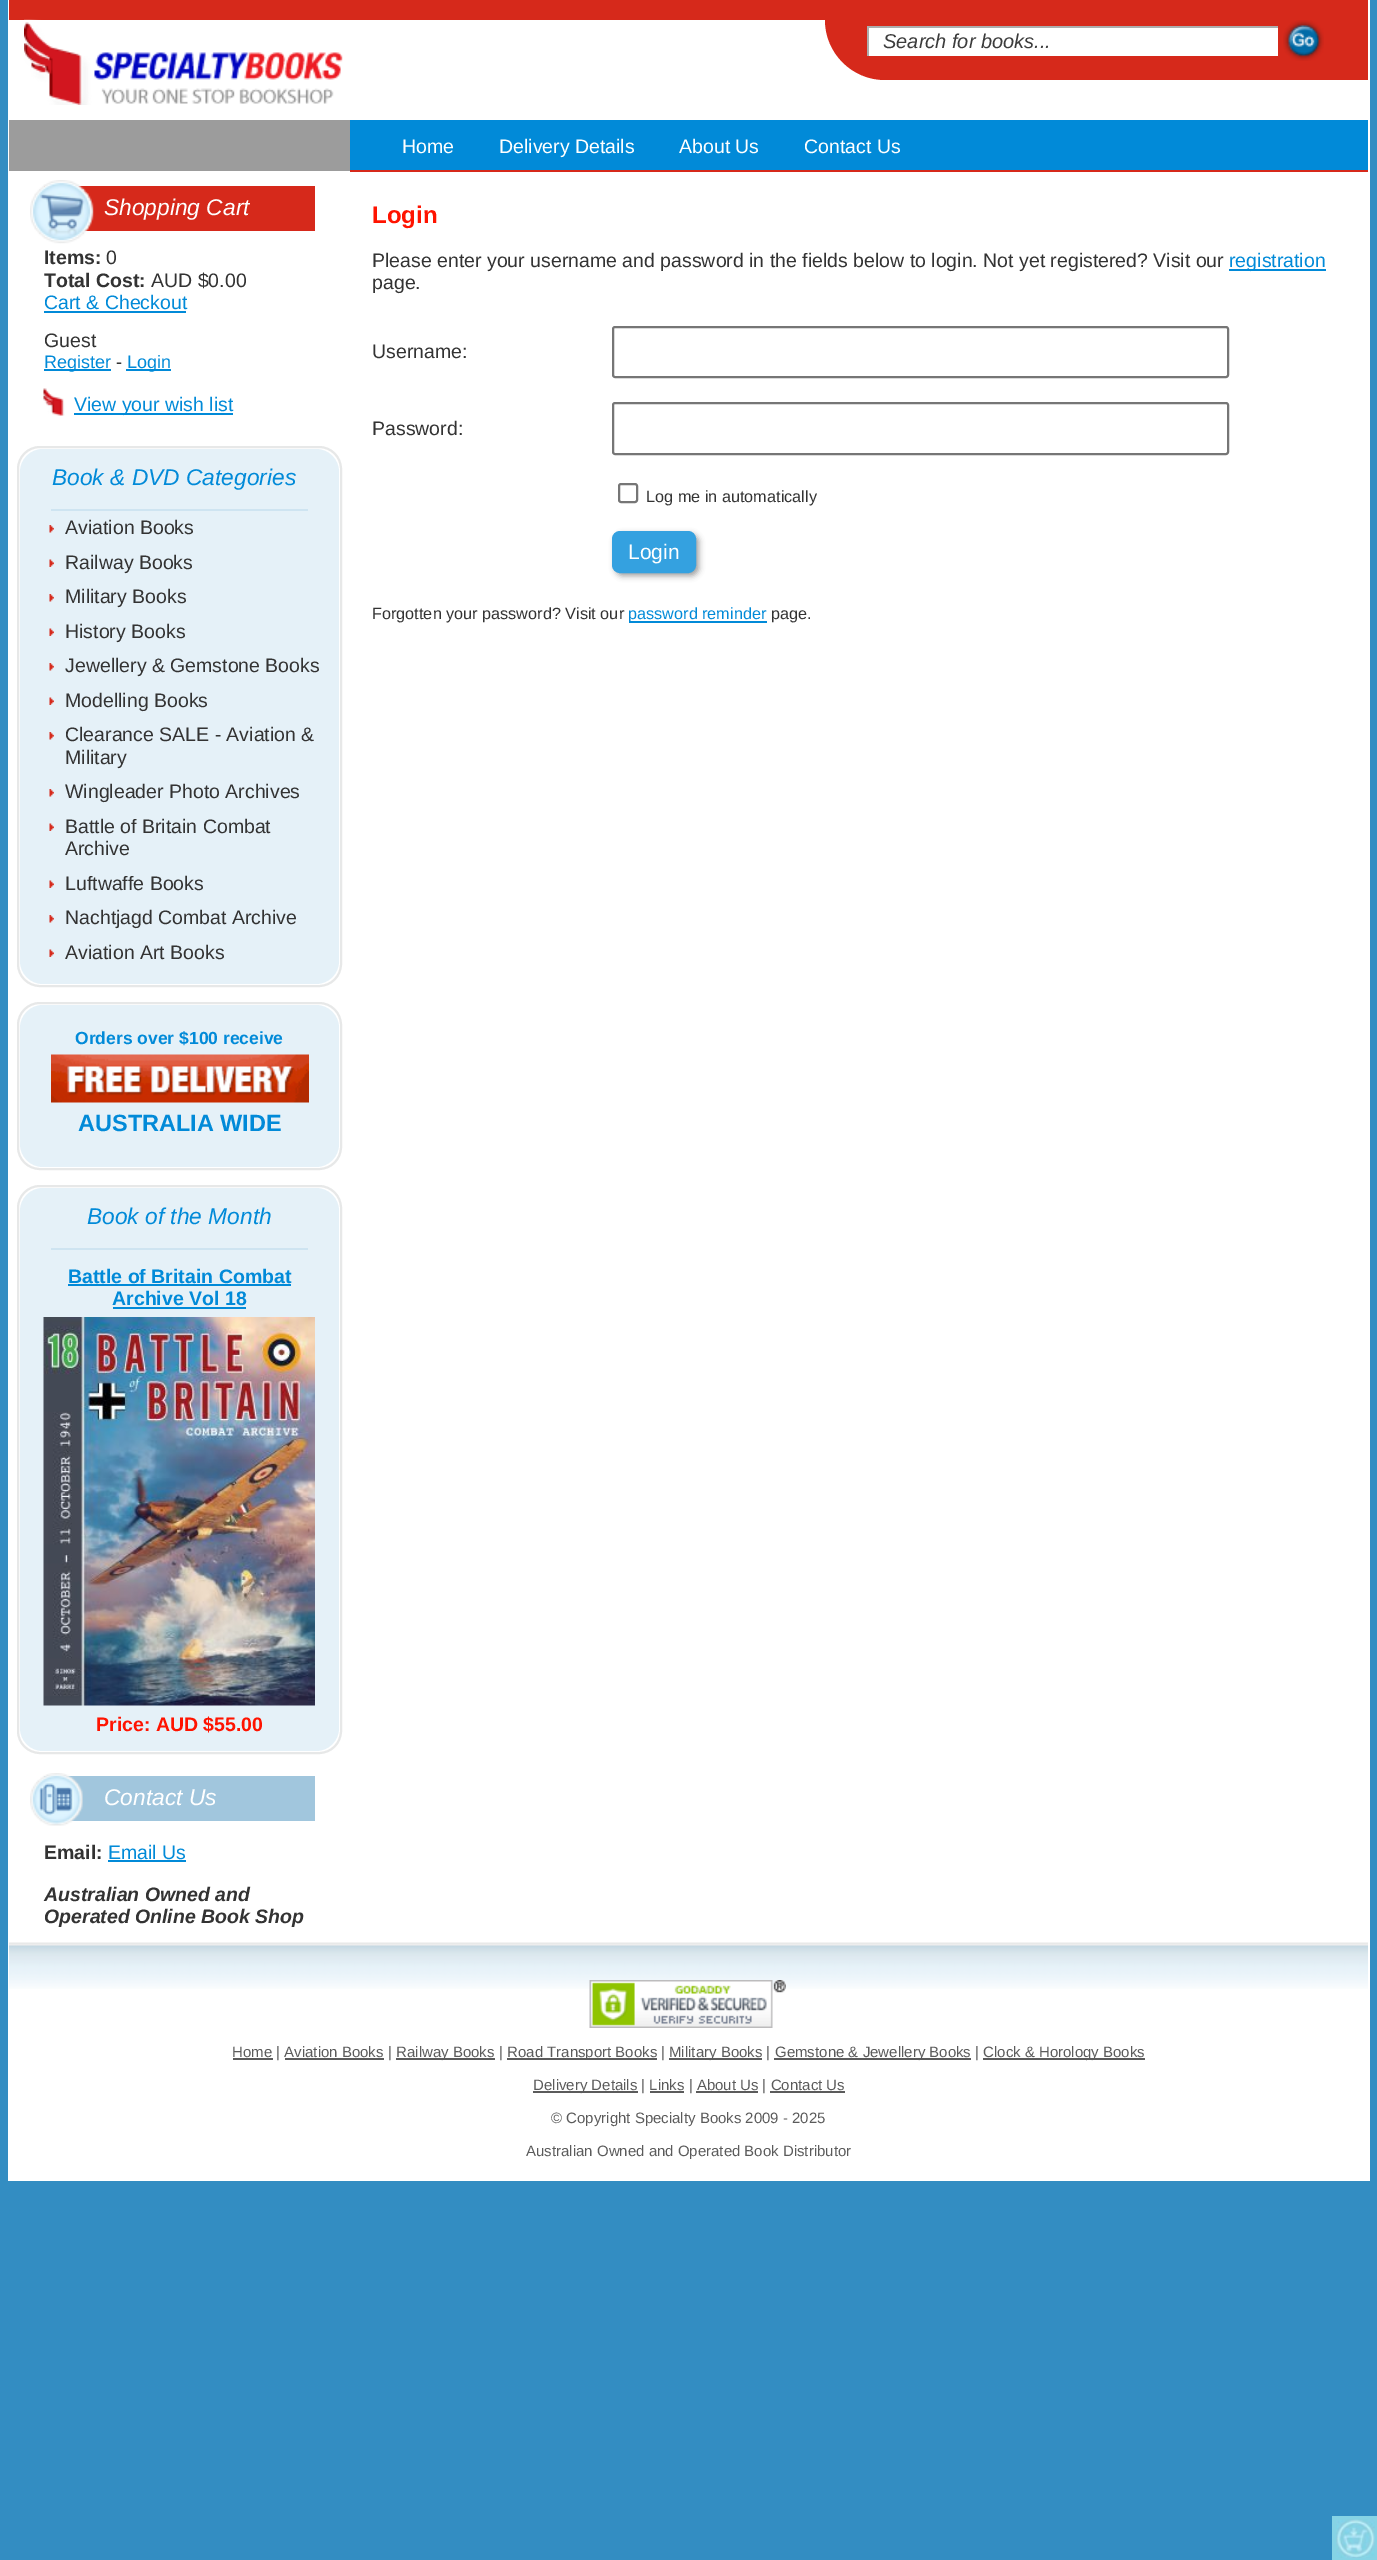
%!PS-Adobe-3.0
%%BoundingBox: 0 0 1377 2560
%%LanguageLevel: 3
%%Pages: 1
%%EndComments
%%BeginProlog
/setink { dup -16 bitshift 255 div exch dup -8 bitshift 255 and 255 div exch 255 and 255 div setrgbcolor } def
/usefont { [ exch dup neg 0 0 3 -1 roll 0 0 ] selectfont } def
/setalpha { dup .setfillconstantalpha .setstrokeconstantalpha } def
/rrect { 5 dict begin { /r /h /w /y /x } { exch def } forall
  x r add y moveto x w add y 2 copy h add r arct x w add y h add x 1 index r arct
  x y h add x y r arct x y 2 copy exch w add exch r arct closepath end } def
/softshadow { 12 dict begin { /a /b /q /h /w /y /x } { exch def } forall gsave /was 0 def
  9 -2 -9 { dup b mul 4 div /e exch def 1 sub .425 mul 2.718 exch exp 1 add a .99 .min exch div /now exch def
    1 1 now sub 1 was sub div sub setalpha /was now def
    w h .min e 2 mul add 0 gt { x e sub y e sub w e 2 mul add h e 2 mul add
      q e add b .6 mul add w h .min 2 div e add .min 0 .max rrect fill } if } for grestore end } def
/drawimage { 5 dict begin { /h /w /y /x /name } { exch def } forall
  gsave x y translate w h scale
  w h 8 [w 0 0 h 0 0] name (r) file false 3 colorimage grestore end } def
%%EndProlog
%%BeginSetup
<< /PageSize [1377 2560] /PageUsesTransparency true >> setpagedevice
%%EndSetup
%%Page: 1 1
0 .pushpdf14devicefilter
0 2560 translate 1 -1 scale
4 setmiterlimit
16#338DC2 setink
0 0 1377 2560 rectfill
16#FFFFFF setink
8 0 1362 2181 rectfill
16#D6291B setink
9 0 1359 20 rectfill
(img1.raw) 24 19 319 86 drawimage
825 20 moveto 1368 20 lineto 1368 80 lineto 885 80 lineto 852 80 825 53 825 20 curveto closepath fill
[
    [869 28 409 28 16#FFFFFF]
    [867 26 411 2 16#ADADAD]
    [867 26 2 30 16#ADADAD]
] { aload pop setink rectfill } forall
/LiberationSans-Italic 20 usefont
16#3C3C3C setink
883 48 moveto (Search for books...) show
(img2.raw) 1283 20 41 41 drawimage
[
    [9 120 341 51 16#9C9C9C]
    [350 120 1018 50 16#018AD8]
    [350 170 1018 2 16#D6291B]
] { aload pop setink rectfill } forall
/LiberationSans-Regular 19.5 usefont
16#FFFFFF setink
[
    [(Home) 402 153]
    [(Delivery Details) 499 153]
    [(About Us) 679 153]
    [(Contact Us) 804 153]
] { aload pop moveto show } forall
16#D6291B setink
44 186 271 45 rectfill
(img3.raw) 30 180 64 64 drawimage
/LiberationSans-Italic 22.75 usefont
16#FFFFFF setink
104 215 moveto (Shopping Cart) show
/LiberationSans-Bold 19.5 usefont
16#333333 setink
44 264 moveto (Items:) show
/LiberationSans-Regular 19.5 usefont
106 264 moveto (0) show
/LiberationSans-Bold 19.5 usefont
44 287 moveto (Total Cost:) show
/LiberationSans-Regular 19.5 usefont
151 287 moveto (AUD $0.00) show
16#018AD8 setink
44 309 moveto (Cart & Checkout) show
44 311 142 2 rectfill
16#333333 setink
44 347 moveto (Guest) show
16#018AD8 setink
44 369 67 2 rectfill
/LiberationSans-Regular 18 usefont
44 368 moveto (Register) show
16#333333 setink
116 368 moveto (-) show
16#018AD8 setink
126 369 45 2 rectfill
127 368 moveto (Login) show
(img4.raw) 43 388 22 28 drawimage
74 413 159 2 rectfill
/LiberationSans-Regular 19.5 usefont
74 411 moveto (View your wish list) show
16#E7E8E8 setink
2 setlinewidth
18 447 323 539 22 rrect stroke
16#E5F1F8 setink
20 449 319 535 23 rrect fill
16#CEE4F1 setink
51 509 257 2 rectfill
/LiberationSans-Italic 22.75 usefont
16#018AD8 setink
52 485 moveto (Book & DVD Categories) show
(img5.raw) 49 525 5 8 drawimage
/LiberationSans-Regular 19.5 usefont
16#333333 setink
65 534 moveto (Aviation Books) show
(img6.raw) 49 559 5 8 drawimage
65 569 moveto (Railway Books) show
(img5.raw) 49 594 5 8 drawimage
65 603 moveto (Military Books) show
(img6.raw) 49 628 5 8 drawimage
65 638 moveto (History Books) show
(img5.raw) 49 663 5 8 drawimage
65 672 moveto (Jewellery & Gemstone Books) show
(img6.raw) 49 697 5 8 drawimage
65 707 moveto (Modelling Books) show
(img5.raw) 49 732 5 8 drawimage
65 741 moveto (Clearance SALE - Aviation &) show
65 764 moveto (Military) show
(img5.raw) 49 789 5 8 drawimage
65 798 moveto (Wingleader Photo Archives) show
(img6.raw) 49 823 5 8 drawimage
65 833 moveto (Battle of Britain Combat) show
65 855 moveto (Archive) show
(img6.raw) 49 880 5 8 drawimage
65 890 moveto (Luftwaffe Books) show
(img5.raw) 49 915 5 8 drawimage
65 924 moveto (Nachtjagd Combat Archive) show
(img6.raw) 49 949 5 8 drawimage
65 959 moveto (Aviation Art Books) show
16#E7E8E8 setink
18 1003 323 166 22 rrect stroke
16#E5F1F8 setink
20 1005 319 162 23 rrect fill
/LiberationSans-Bold 17.5 usefont
16#018AD8 setink
75 1044 moveto (Orders over $100 receive) show
(img7.raw) 51 1054 258 49 drawimage
/LiberationSans-Bold 23.5 usefont
78 1131 moveto (AUSTRALIA WIDE) show
16#E7E8E8 setink
18 1186 323 567 22 rrect stroke
16#E5F1F8 setink
20 1188 319 563 23 rrect fill
16#CEE4F1 setink
51 1248 257 2 rectfill
/LiberationSans-Italic 22.75 usefont
16#018AD8 setink
87 1224 moveto (Book of the Month) show
/LiberationSans-Bold 19.5 usefont
68 1283 moveto (Battle of Britain Combat) show
68 1284 223 2 rectfill
112 1305 moveto (Archive Vol 18) show
113 1307 133 2 rectfill
(img8.raw) 43 1317 272 389 drawimage
16#FF1300 setink
96 1731 moveto (Price: AUD $55.00) show
16#A1C6DD setink
44 1776 271 45 rectfill
(img9.raw) 30 1773 53 53 drawimage
/LiberationSans-Italic 22.75 usefont
16#FFFFFF setink
104 1805 moveto (Contact Us) show
/LiberationSans-Bold 19.5 usefont
16#333333 setink
44 1859 moveto (Email:) show
/LiberationSans-Regular 19.5 usefont
16#018AD8 setink
108 1859 moveto (Email Us) show
108 1860 78 2 rectfill
/LiberationSans-BoldItalic 19.5 usefont
16#333333 setink
44 1901 moveto (Australian Owned and) show
44 1923 moveto (Operated Online Book Shop) show
/LiberationSans-Bold 24 usefont
16#FF1300 setink
372 223 moveto (Login) show
/LiberationSans-Regular 19.5 usefont
16#333333 setink
372 267 moveto (Please enter your username and password in the fields below to login. Not yet registered? Visit our) show
16#018AD8 setink
1229 269 97 2 rectfill
1229 267 moveto (registration) show
16#333333 setink
372 289 moveto (page.) show
372 358 moveto (Username:) show
16#767676 setink
613 327 615 50 2 rrect stroke
16#333333 setink
372 435 moveto (Password:) show
16#767676 setink
613 403 615 51 2 rrect stroke
619 484 18 18 2 rrect stroke
/LiberationSans-Regular 16.25 usefont
16#333333 setink
646 502 moveto (Log me in automatically) show
16#A0A0A0 setink
615 534 84 42 8 3 1 softshadow
16#34A1E0 setink
613 532 82 40 7 rrect gsave fill grestore
stroke
/LiberationSans-Regular 21 usefont
16#FFFFFF setink
628 559 moveto (Login) show
/LiberationSans-Regular 16.25 usefont
16#333333 setink
372 619 moveto (Forgotten your password? Visit our) show
16#018AD8 setink
629 621 138 2 rectfill
628 619 moveto (password reminder) show
16#333333 setink
771 619 moveto (page.) show
(img10.raw) 9 1942 1359 47 drawimage
(img11.raw) 589 1980 197 48 drawimage
16#5B5B5B setink
233 2058 40 2 rectfill
/LiberationSans-Regular 15 usefont
232 2057 moveto (Home | Aviation Books |) show
396 2058 99 2 rectfill
396 2057 moveto (Railway Books |) show
507 2058 150 2 rectfill
507 2057 moveto (Road Transport Books |) show
669 2058 93 2 rectfill
669 2057 moveto (Military Books |) show
774 2058 197 2 rectfill
775 2057 moveto (Gemstone & Jewellery Books |) show
983 2058 162 2 rectfill
983 2057 moveto (Clock & Horology Books) show
285 2058 99 2 rectfill
533 2091 105 2 rectfill
533 2090 moveto (Delivery Details | Links | About Us | Contact Us) show
[
    [650 2091 34 2 16#5B5B5B]
    [696 2091 62 2 16#5B5B5B]
    [770 2091 75 2 16#5B5B5B]
] { aload pop setink rectfill } forall
551 2123 moveto (© Copyright Specialty Books 2009 - 2025) show
526 2156 moveto (Australian Owned and Operated Book Distributor) show
16#86D3E5 setink
1332 2516 45 44 rectfill
(img12.raw) 1336 2519 39 39 drawimage
.poppdf14devicefilter showpage
%%EOF
